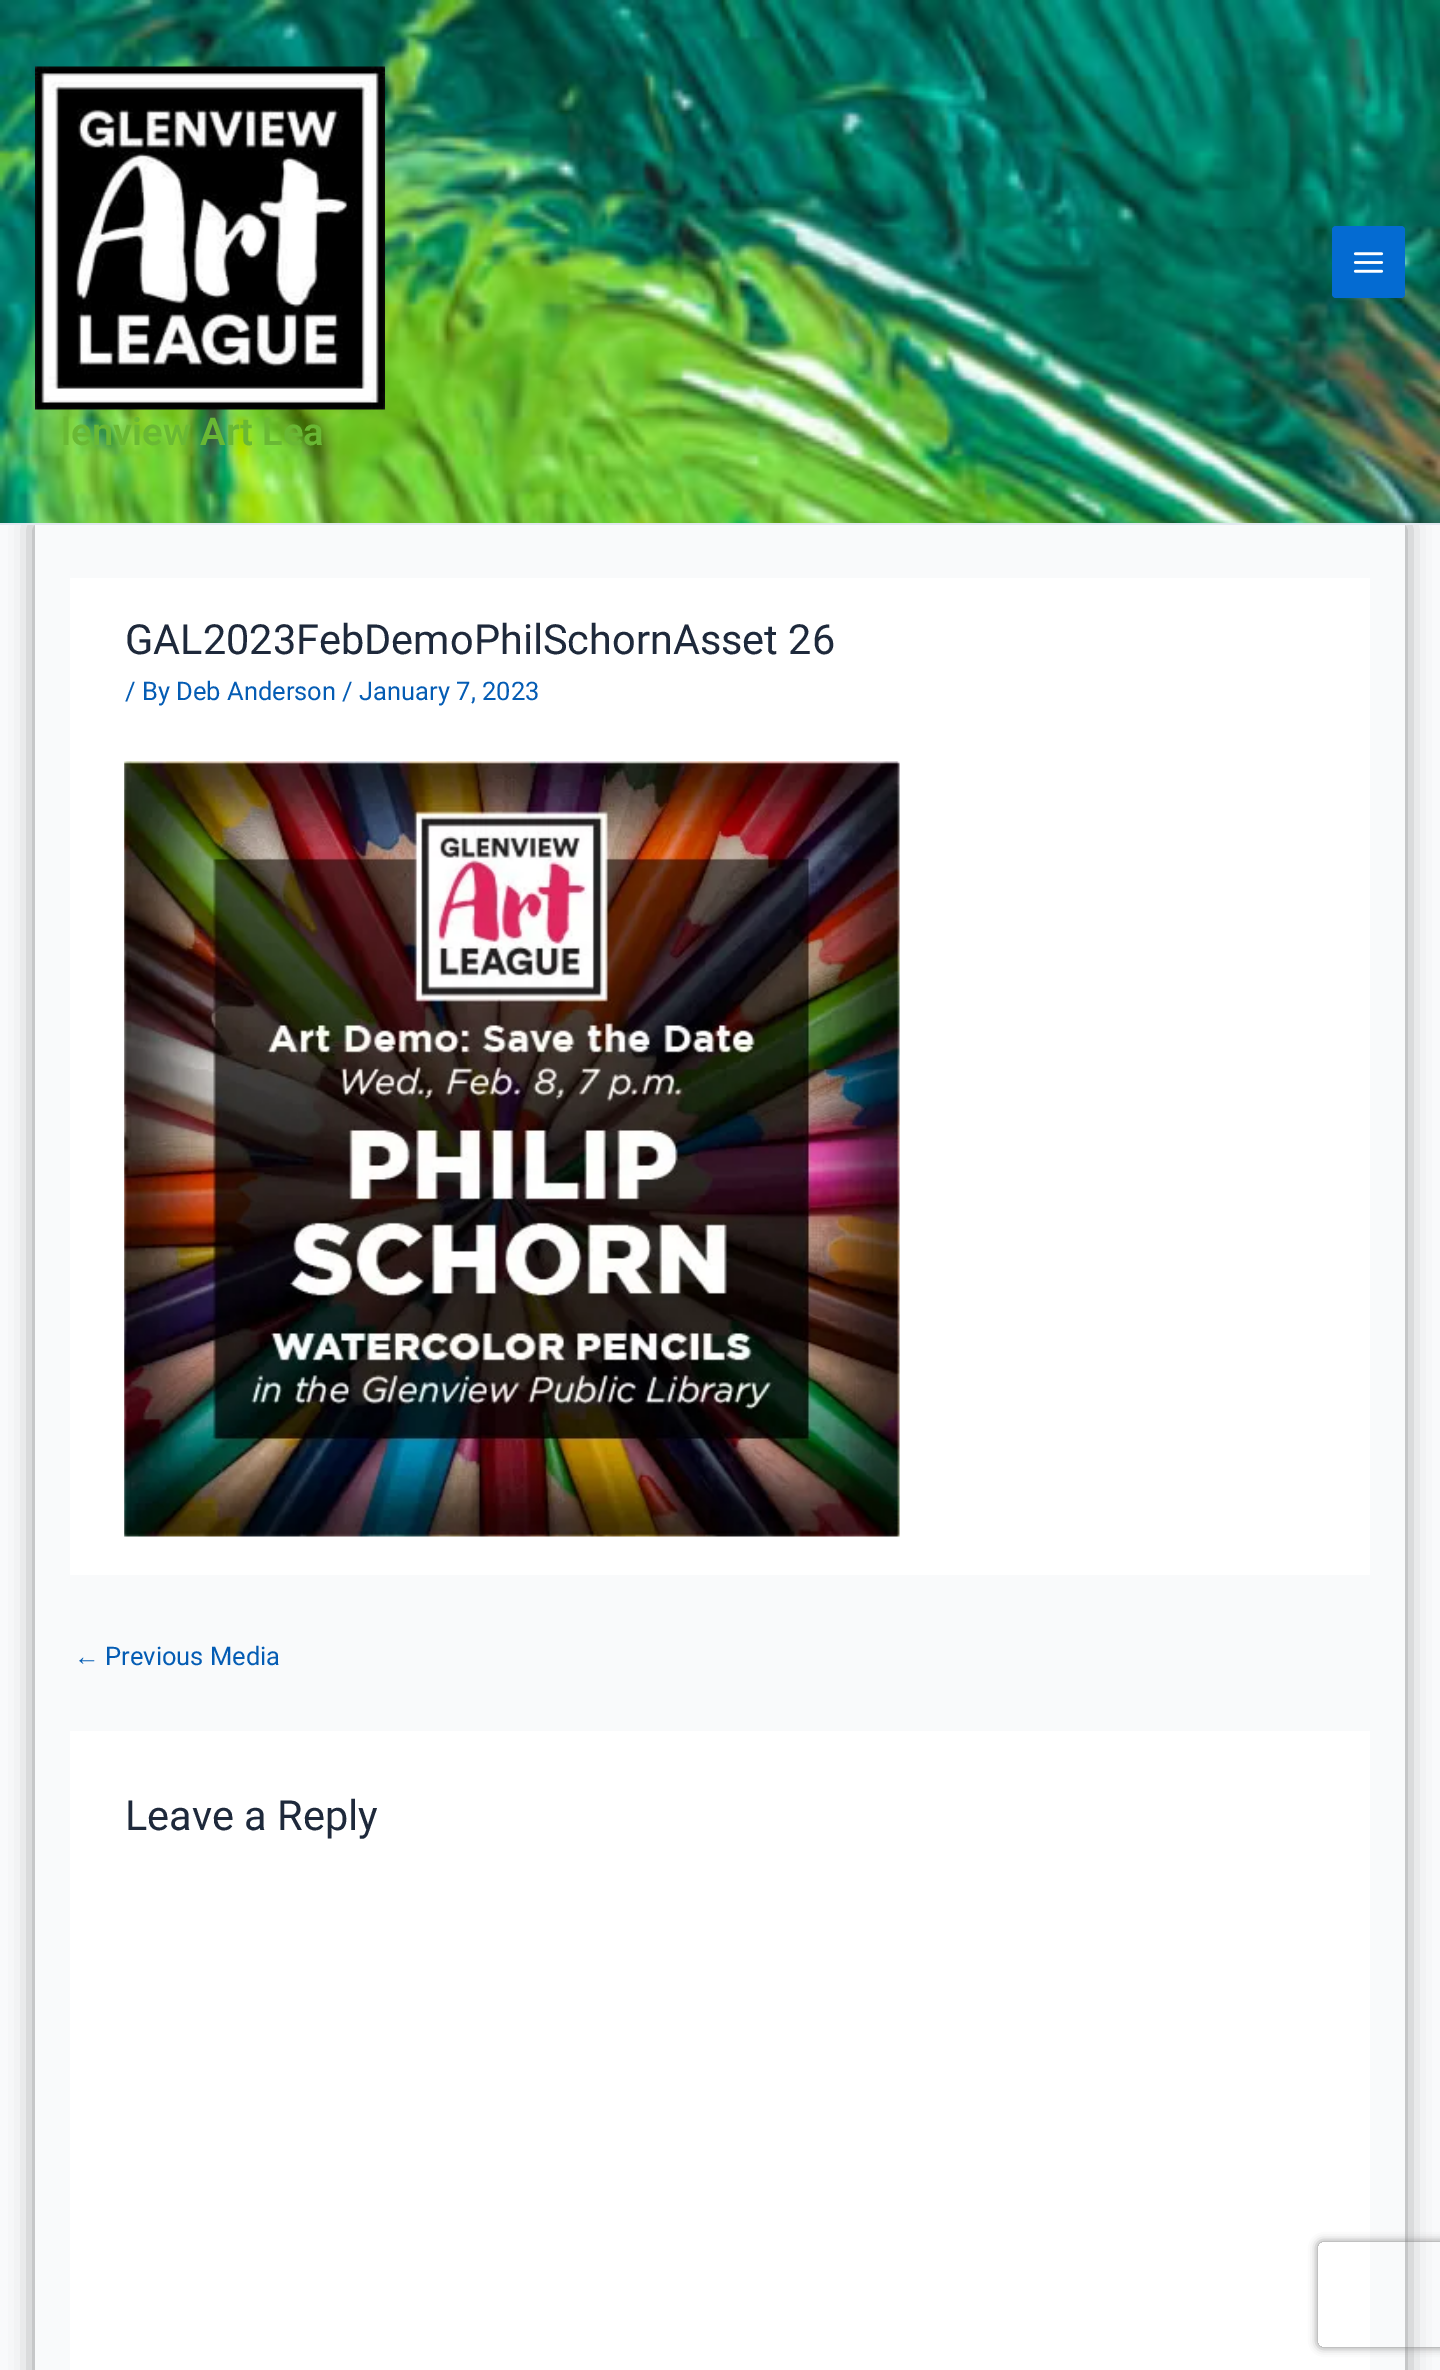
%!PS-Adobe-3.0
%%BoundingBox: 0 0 1440 2370
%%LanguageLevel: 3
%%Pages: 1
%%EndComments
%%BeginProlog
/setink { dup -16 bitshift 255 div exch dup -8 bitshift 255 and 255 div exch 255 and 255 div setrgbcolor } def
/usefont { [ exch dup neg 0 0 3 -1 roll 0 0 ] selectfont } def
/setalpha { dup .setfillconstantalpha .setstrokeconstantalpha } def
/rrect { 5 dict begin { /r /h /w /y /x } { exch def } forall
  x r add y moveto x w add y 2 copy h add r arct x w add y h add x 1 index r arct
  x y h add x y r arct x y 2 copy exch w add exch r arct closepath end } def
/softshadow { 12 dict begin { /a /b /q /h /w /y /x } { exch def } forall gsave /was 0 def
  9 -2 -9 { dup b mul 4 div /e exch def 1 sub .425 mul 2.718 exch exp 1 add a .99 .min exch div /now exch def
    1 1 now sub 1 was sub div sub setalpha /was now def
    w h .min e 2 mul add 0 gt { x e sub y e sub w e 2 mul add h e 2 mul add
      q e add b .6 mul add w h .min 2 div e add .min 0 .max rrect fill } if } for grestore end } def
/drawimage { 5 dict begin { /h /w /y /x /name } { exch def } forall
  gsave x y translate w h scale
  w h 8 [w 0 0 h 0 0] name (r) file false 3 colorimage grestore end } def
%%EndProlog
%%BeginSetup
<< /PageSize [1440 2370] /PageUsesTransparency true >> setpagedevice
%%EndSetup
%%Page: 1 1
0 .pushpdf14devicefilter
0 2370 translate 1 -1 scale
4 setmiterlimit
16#F9FAFB setink
0 0 1440 2370 rectfill
gsave
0 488 moveto 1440 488 lineto 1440 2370 lineto 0 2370 lineto closepath 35 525 moveto 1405 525 lineto 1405 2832 lineto 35 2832 lineto closepath eoclip newpath
16#000000 setink
35 525 1370 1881 0 12 0.4 softshadow
grestore
(img1.raw) 0 0 1440 523 drawimage
16#E2E8F0 setink
0 523 1440 2 rectfill
16#046BD2 setink
1332 226 73 72 4 rrect fill
(img2.raw) 1353 252 31 21 drawimage
(img3.raw) 35 66 350 344 drawimage
/Roboto-SemiBold 38.25 usefont
16#69B834 setink
61 445 moveto (lenview Art Lea) show
16#FFFFFF setink
70 578 1300 997 rectfill
/Roboto-Regular 41.5 usefont
16#1E293B setink
125 654 moveto (GAL2023FebDemoPhilSchornAsset 26) show
/Roboto-Regular 25.5 usefont
16#045CB4 setink
125 700 moveto (/ By Deb Anderson / January 7, 2023) show
(img4.raw) 124 761 776 776 drawimage
/LiberationSans-Regular 25.5 usefont
74 1665 moveto (←) show
/Roboto-Regular 25.5 usefont
105 1665 moveto (Previous Media) show
16#FFFFFF setink
70 1731 1300 639 rectfill
/Roboto-Regular 41.5 usefont
16#1E293B setink
125 1830 moveto (Leave a Reply) show
gsave
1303 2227 moveto 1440 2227 lineto 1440 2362 lineto 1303 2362 lineto closepath 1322 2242 moveto 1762 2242 lineto 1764 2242 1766 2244 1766 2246 curveto 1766 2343 lineto 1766 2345 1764 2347 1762 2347 curveto 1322 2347 lineto 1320 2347 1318 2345 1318 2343 curveto 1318 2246 lineto 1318 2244 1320 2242 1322 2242 curveto closepath eoclip newpath
16#808080 setink
1318 2242 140 105 4 4.5 1 softshadow
grestore
.poppdf14devicefilter showpage
%%EOF
